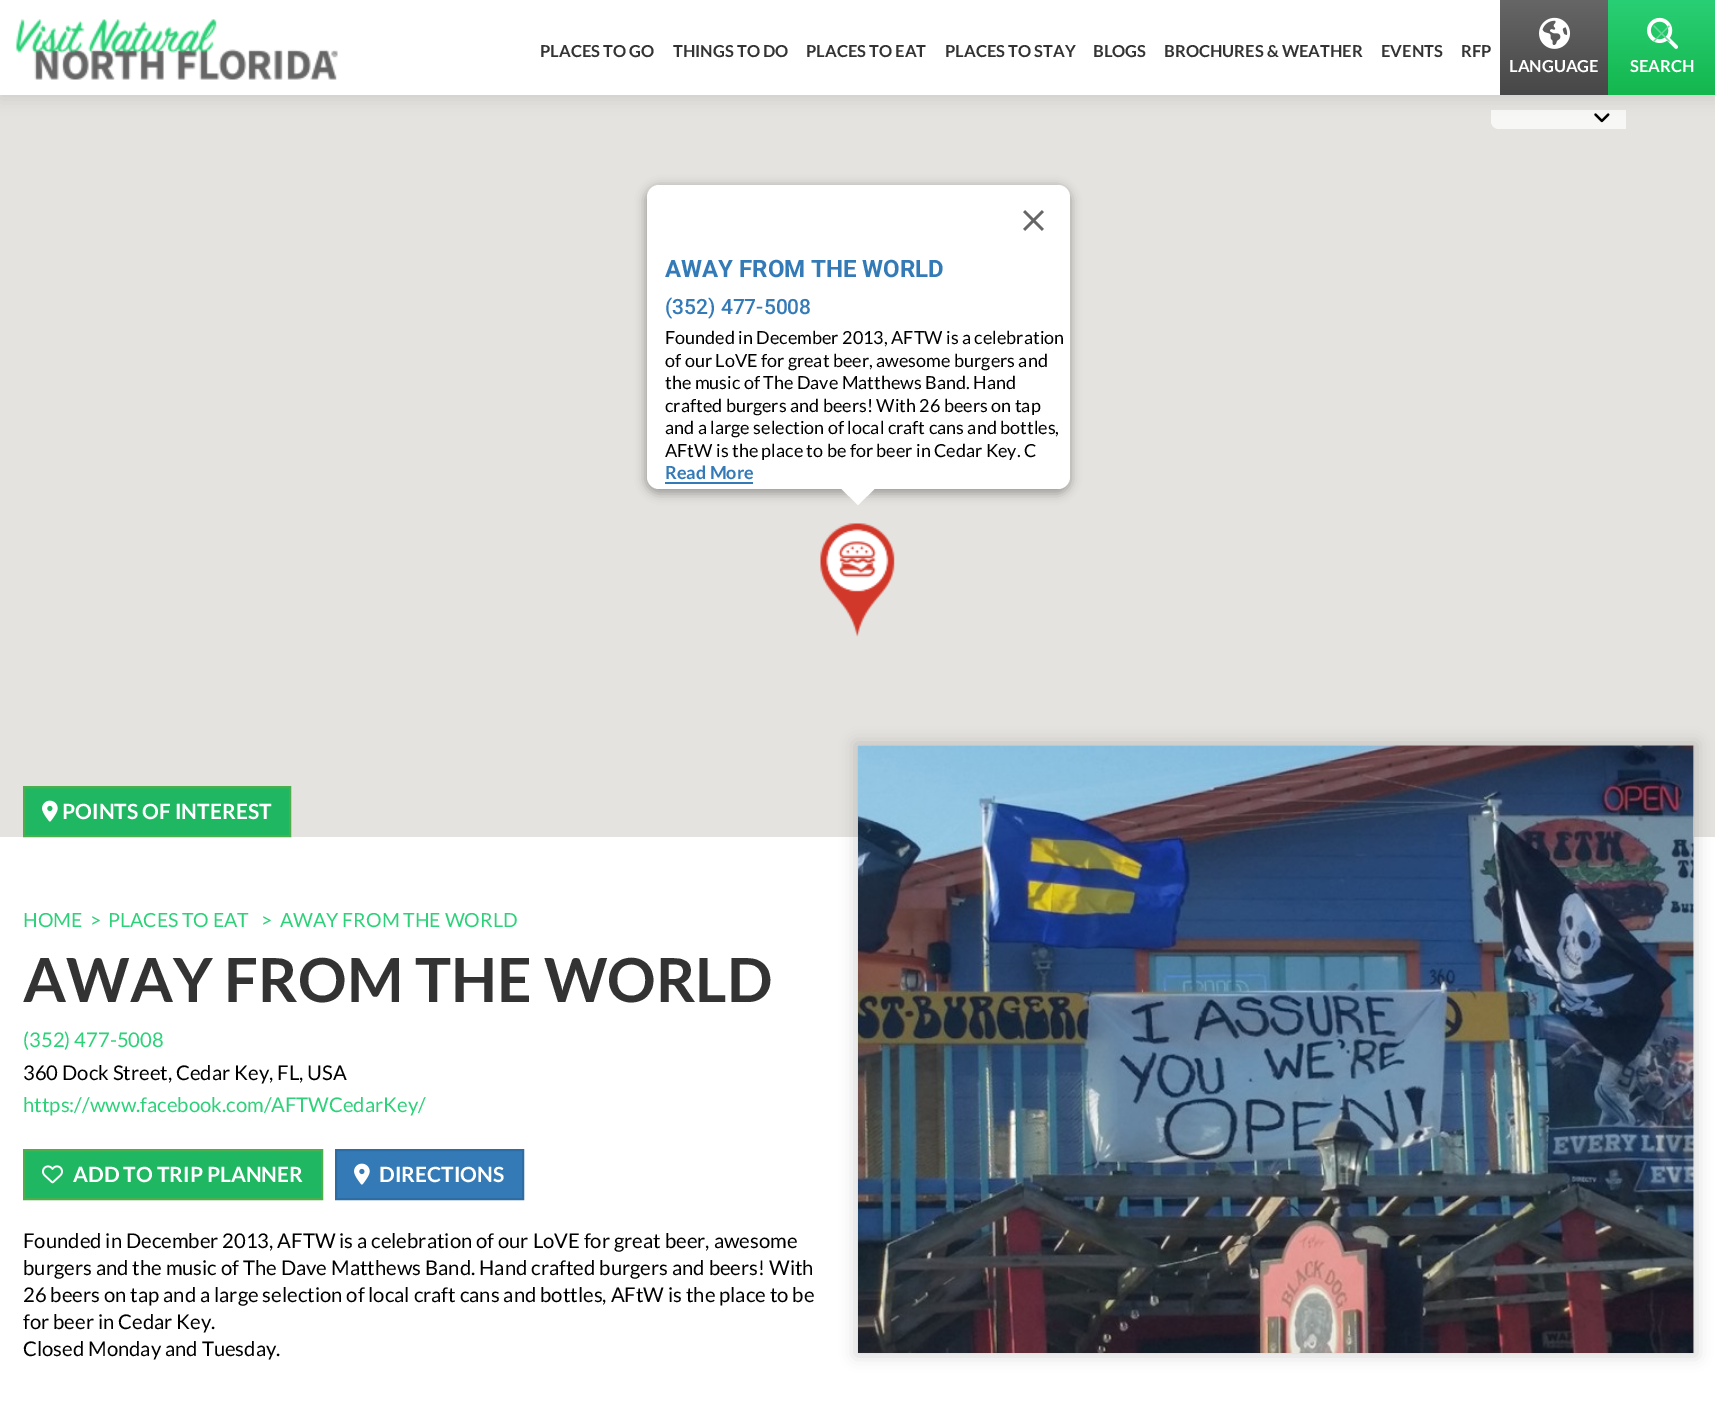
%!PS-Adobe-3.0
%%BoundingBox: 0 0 1715 1411
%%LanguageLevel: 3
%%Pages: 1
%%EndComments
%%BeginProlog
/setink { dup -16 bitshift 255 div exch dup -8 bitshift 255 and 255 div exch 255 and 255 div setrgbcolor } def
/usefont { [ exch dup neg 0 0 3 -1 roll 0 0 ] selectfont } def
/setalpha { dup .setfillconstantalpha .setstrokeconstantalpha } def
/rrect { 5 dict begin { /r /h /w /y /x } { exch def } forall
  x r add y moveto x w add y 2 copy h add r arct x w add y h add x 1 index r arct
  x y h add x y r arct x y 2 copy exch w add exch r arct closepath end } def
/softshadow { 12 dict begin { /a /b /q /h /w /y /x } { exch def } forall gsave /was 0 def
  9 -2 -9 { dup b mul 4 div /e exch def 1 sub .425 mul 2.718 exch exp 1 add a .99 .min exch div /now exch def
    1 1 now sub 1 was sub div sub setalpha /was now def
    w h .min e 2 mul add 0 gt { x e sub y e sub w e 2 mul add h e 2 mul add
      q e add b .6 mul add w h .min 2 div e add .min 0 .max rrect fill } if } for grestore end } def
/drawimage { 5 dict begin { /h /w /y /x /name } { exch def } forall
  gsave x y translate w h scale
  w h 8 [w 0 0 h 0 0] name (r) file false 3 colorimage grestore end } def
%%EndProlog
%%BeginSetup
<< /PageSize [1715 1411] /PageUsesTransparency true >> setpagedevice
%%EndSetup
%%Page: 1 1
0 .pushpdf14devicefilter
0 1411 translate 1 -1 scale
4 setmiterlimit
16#FFFFFF setink
0 0 1715 1411 rectfill
16#E5E3DF setink
0 95 1715 742 rectfill
16#F7F7F5 setink
1491 110 moveto 1626 110 lineto 1626 129 lineto 1499 129 lineto 1494.5 129 1491 125.5 1491 121 curveto closepath fill
(img4.raw) 1594 113 16 10 drawimage
16#000000 setink
0 5 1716 94 0 7.5 0.1 softshadow
16#FFFFFF setink
0 0 1500 95 rectfill
(img1.raw) 16 19 322 61 drawimage
/Lato-Bold 16.5 usefont
16#333333 setink
[
    [(PLACES TO GO) 540 57]
    [(THINGS TO DO) 673 57]
    [(PLACES TO EAT) 806 57]
    [(PLACES TO STAY) 945 57]
    [(BLOGS) 1093 57]
    [(BROCHURES & WEATHER) 1164 57]
    [(EVENTS) 1381 57]
    [(RFP) 1461 57]
] { aload pop moveto show } forall
gsave 1500 0 moveto 1608 0 lineto 1608 95 lineto 1500 95 lineto closepath clip newpath
<< /ShadingType 2 /ColorSpace /DeviceRGB /Coords [1554 0 1554 95] /Extend [true true] /Function << /FunctionType 2 /Domain [0 1] /C0 [0.4 0.4 0.4] /C1 [0.278 0.278 0.278] /N 1 >> >> shfill grestore
(img2.raw) 1539 17 32 32 drawimage
16#FFFFFF setink
1509 72 moveto (LANGUAGE) show
gsave 1608 0 moveto 1715 0 lineto 1715 95 lineto 1608 95 lineto closepath clip newpath
<< /ShadingType 2 /ColorSpace /DeviceRGB /Coords [1662 0 1662 95] /Extend [true true] /Function << /FunctionType 2 /Domain [0 1] /C0 [0.161 0.812 0.455] /C1 [0.078 0.718 0.306] /N 1 >> >> shfill grestore
(img3.raw) 1647 17 31 32 drawimage
/Lato-Light 40 usefont
16#6AD999 setink
1650 47 moveto (×) show
/Lato-Bold 16.5 usefont
16#FFFFFF setink
1630 72 moveto (SEARCH) show
16#000000 setink
645 186 426 308 14 5 0.3 softshadow
16#FFFFFF setink
647 185 423 304 12 rrect fill
(img5.raw) 1023 210 21 21 drawimage
/Roboto-Bold 24 usefont
16#337AB7 setink
665 277 moveto (AWAY FROM THE WORLD) show
/Roboto-Medium 21 usefont
665 314 moveto (\(352\) 477-5008) show
/Lato-Regular 18 usefont
16#000000 setink
[
    [(Founded in December 2013, AFTW is a celebration) 665 344]
    [(of our LoVE for great beer, awesome burgers and) 665 367]
    [(the music of The Dave Matthews Band. Hand) 665 389]
    [(crafted burgers and beers! With 26 beers on tap) 665 412]
    [(and a large selection of local craft cans and bottles,) 665 434]
    [(AFtW is the place to be for beer in Cedar Key. C) 665 457]
] { aload pop moveto show } forall
/Lato-Bold 18 usefont
16#337AB7 setink
665 479 moveto (Read More) show
665 482 88 2 rectfill
16#FFFFFF setink
875.5 488 moveto 840.5 488 lineto 858 505 lineto closepath fill
(img6.raw) 820 523 75 114 drawimage
16#1FB762 setink
24 787 moveto 290 787 lineto 290 836 lineto 24 836 lineto closepath gsave fill grestore
16#4CAE4C setink
2 setlinewidth
stroke
(img7.raw) 42 800 16 22 drawimage
/Lato-Bold 21 usefont
16#FFFFFF setink
62 819 moveto (POINTS OF INTEREST) show
/Lato-Regular 19.5 usefont
16#2DD179 setink
[
    [(HOME) 23 927]
    [(>) 90 927]
    [(PLACES TO EAT) 108 927]
    [(>) 261 927]
    [(AWAY FROM THE WORLD) 280 927]
] { aload pop moveto show } forall
16#000000 setink
855 743 842 613 0 7.5 0.15 softshadow
16#FFFFFF setink
1693 746 1 607 rectfill
(img8.raw) 858 745 836 608 drawimage
/Lato-Bold 60.75 usefont
16#333333 setink
23 1002 moveto (AWAY FROM THE WORLD) show
/Lato-Regular 20.25 usefont
16#2DD179 setink
23 1047 moveto (\(352\) 477-5008) show
16#000000 setink
23 1080 moveto (360 Dock Street, Cedar Key, FL, USA) show
16#2DD179 setink
23 1112 moveto (https://www.facebook.com/AFTWCedarKey/) show
16#1FB762 setink
24 1150 moveto 322 1150 lineto 322 1199 lineto 24 1199 lineto closepath gsave fill grestore
16#4CAE4C setink
stroke
(img9.raw) 42 1165 21 19 drawimage
/Lato-Bold 21 usefont
16#FFFFFF setink
73 1182 moveto (ADD TO TRIP PLANNER) show
16#337AB7 setink
336 1150 moveto 523 1150 lineto 523 1199 lineto 336 1199 lineto closepath gsave fill grestore
16#2E6DA4 setink
stroke
(img10.raw) 354 1163 16 22 drawimage
16#FFFFFF setink
379 1182 moveto (DIRECTIONS) show
/Lato-Regular 20.25 usefont
16#000000 setink
[
    [(Founded in December 2013, AFTW is a celebration of our LoVE for great beer, awesome) 23 1248]
    [(burgers and the music of The Dave Matthews Band. Hand crafted burgers and beers! With) 23 1275]
    [(26 beers on tap and a large selection of local craft cans and bottles, AFtW is the place to be) 23 1302]
    [(for beer in Cedar Key.) 23 1329]
    [(Closed Monday and Tuesday.) 23 1356]
] { aload pop moveto show } forall
.poppdf14devicefilter showpage
%%EOF
